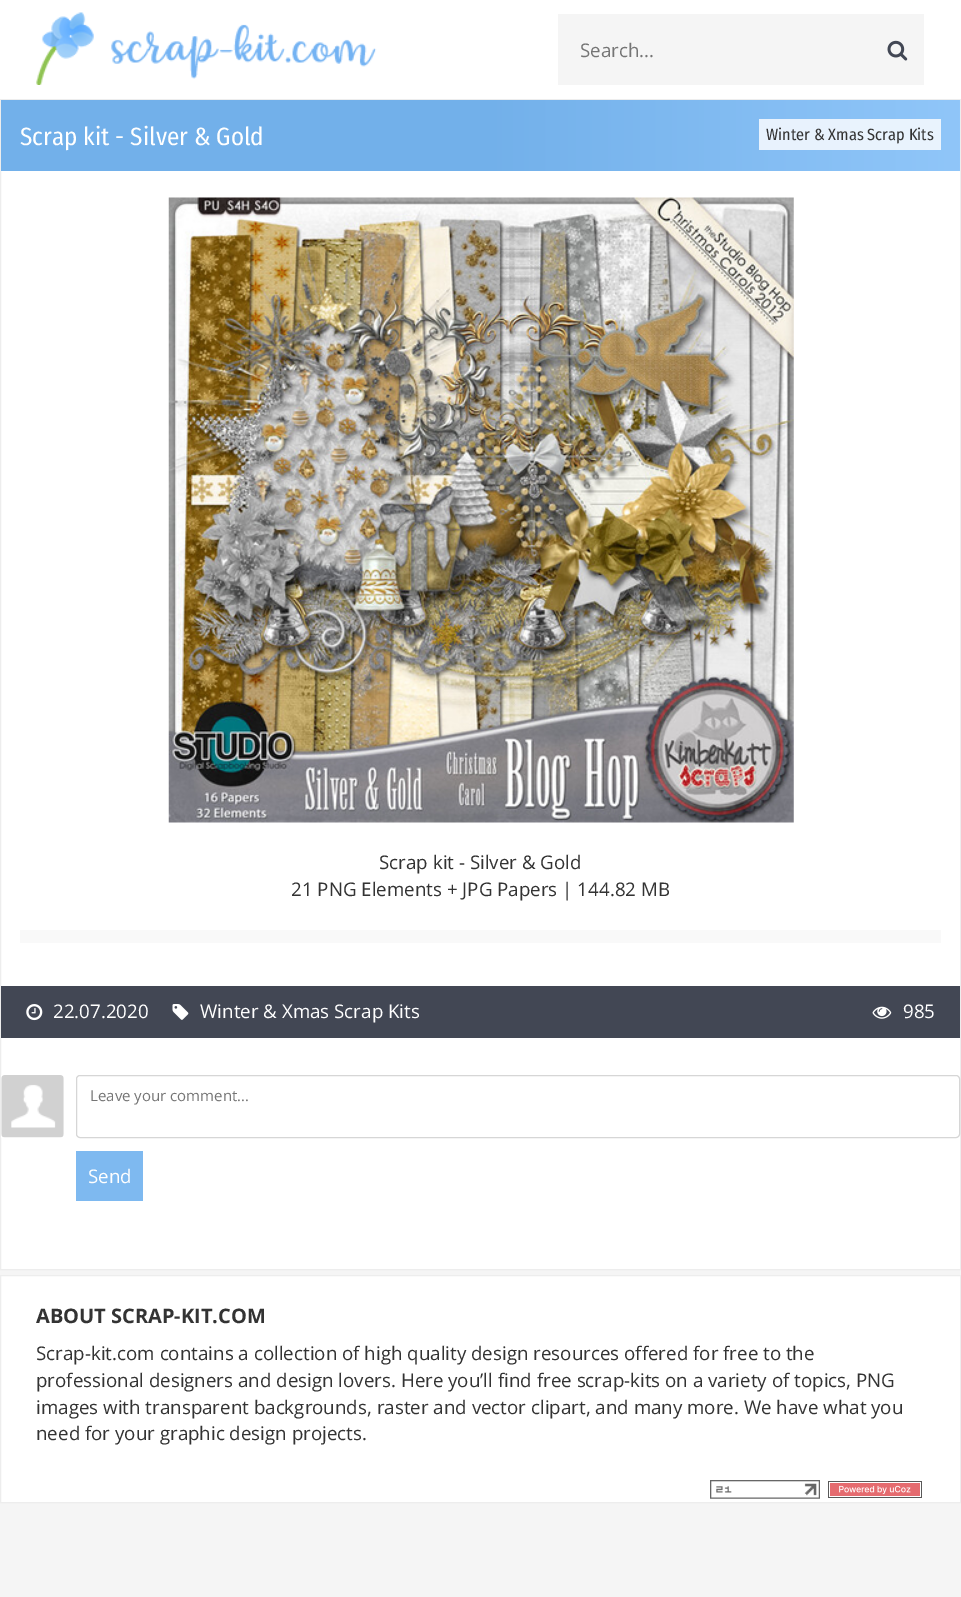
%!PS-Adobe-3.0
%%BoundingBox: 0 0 961 1597
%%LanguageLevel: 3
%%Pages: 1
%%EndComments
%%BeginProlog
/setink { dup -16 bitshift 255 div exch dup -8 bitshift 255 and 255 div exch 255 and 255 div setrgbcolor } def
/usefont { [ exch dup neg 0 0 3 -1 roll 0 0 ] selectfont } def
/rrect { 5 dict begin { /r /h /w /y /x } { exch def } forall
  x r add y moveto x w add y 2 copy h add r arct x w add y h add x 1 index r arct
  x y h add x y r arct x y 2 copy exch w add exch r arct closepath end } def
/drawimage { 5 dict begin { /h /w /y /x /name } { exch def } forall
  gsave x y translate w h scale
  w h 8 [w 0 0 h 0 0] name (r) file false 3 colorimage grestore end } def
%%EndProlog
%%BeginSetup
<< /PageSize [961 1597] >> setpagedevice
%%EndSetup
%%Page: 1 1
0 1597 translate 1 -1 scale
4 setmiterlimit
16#F5F5F5 setink
0 0 961 1597 rectfill
16#FFFFFF setink
0 0 961 99 rectfill
(img1.raw) 36 12 341 73 drawimage
16#F5F5F5 setink
558 14 366 71 rectfill
/OpenSans-Regular 18.75 usefont
16#757575 setink
580 57 moveto (Search...) show
(img2.raw) 887 40 21 21 drawimage
16#FFFFFF setink
1 171 959 1098 rectfill
16#EDEDED setink
0.5 99.5 960 1170 rectstroke
gsave 1 100 moveto 960 100 lineto 960 171 lineto 1 171 lineto closepath clip newpath
<< /ShadingType 2 /ColorSpace /DeviceRGB /Coords [1.2 31 960 31] /Extend [true true] /Function << /FunctionType 3 /Domain [0 1] /Functions [<< /FunctionType 2 /Domain [0 1] /C0 [0.447 0.69 0.918] /C1 [0.447 0.69 0.918] /N 1 >> << /FunctionType 2 /Domain [0 1] /C0 [0.447 0.69 0.918] /C1 [0.565 0.776 0.976] /N 1 >>] /Bounds [0.5] /Encode [0 1 0 1] >> >> shfill grestore
gsave 759 119 moveto 941 119 lineto 941 150 lineto 759 150 lineto closepath clip newpath
<< /ShadingType 2 /ColorSpace /DeviceRGB /Coords [1.2 31 960 31] /Extend [true true] /Function << /FunctionType 3 /Domain [0 1] /Functions [<< /FunctionType 2 /Domain [0 1] /C0 [0.894 0.941 0.984] /C1 [0.894 0.941 0.984] /N 1 >> << /FunctionType 2 /Domain [0 1] /C0 [0.894 0.941 0.984] /C1 [0.918 0.957 0.996] /N 1 >>] /Bounds [0.5] /Encode [0 1 0 1] >> >> shfill grestore
/FiraSansCondensed-Regular 25 usefont
16#FFFFFF setink
20 145 moveto (Scrap kit - Silver & Gold) show
/FiraSansCondensed-Regular 16.25 usefont
16#333333 setink
766 140 moveto (Winter & Xmas Scrap Kits) show
(img3.raw) 168 197 626 626 drawimage
/OpenSans-Regular 18.75 usefont
379 869 moveto (Scrap kit - Silver & Gold) show
291 896 moveto (21 PNG Elements + JPG Papers | 144.82 MB) show
16#F9F9F9 setink
20 930 921 13 rectfill
16#424754 setink
1 986 959 52 rectfill
(img4.raw) 26 1004 17 17 drawimage
16#FFFFFF setink
53 1018 moveto (22.07.2020) show
(img5.raw) 172 1004 17 16 drawimage
200 1018 moveto (Winter & Xmas Scrap Kits) show
(img6.raw) 872 1006 20 13 drawimage
903 1018 moveto (985) show
(img7.raw) 1 1075 63 63 drawimage
16#D6D6D6 setink
76.5 1075.5 883 62 3.5 rrect stroke
/OpenSans-Regular 15 usefont
16#757575 setink
90 1101 moveto (Leave your comment...) show
16#7EB9F0 setink
76 1151 67 50 rectfill
/OpenSans-Regular 18.75 usefont
16#FFFFFF setink
88 1183 moveto (Send) show
0.5 1275.5 moveto 960.5 1275.5 lineto 960.5 1502.5 lineto 0.5 1502.5 lineto closepath gsave fill grestore
16#EDEDED setink
stroke
/OpenSans-Bold 20 usefont
16#333333 setink
36 1323 moveto (ABOUT SCRAP-KIT.COM) show
/OpenSans-Regular 18.75 usefont
[
    [(Scrap-kit.com contains a collection of high quality design resources offered for free to the) 36 1360]
    [(professional designers and design lovers. Here you’ll find free scrap-kits on a variety of topics, PNG) 36 1387]
    [(images with transparent backgrounds, raster and vector clipart, and many more. We have what you) 36 1414]
    [(need for your graphic design projects.) 36 1440]
] { aload pop moveto show } forall
(img8.raw) 710 1480 110 19 drawimage
(img9.raw) 828 1481 94 17 drawimage
showpage
%%EOF
